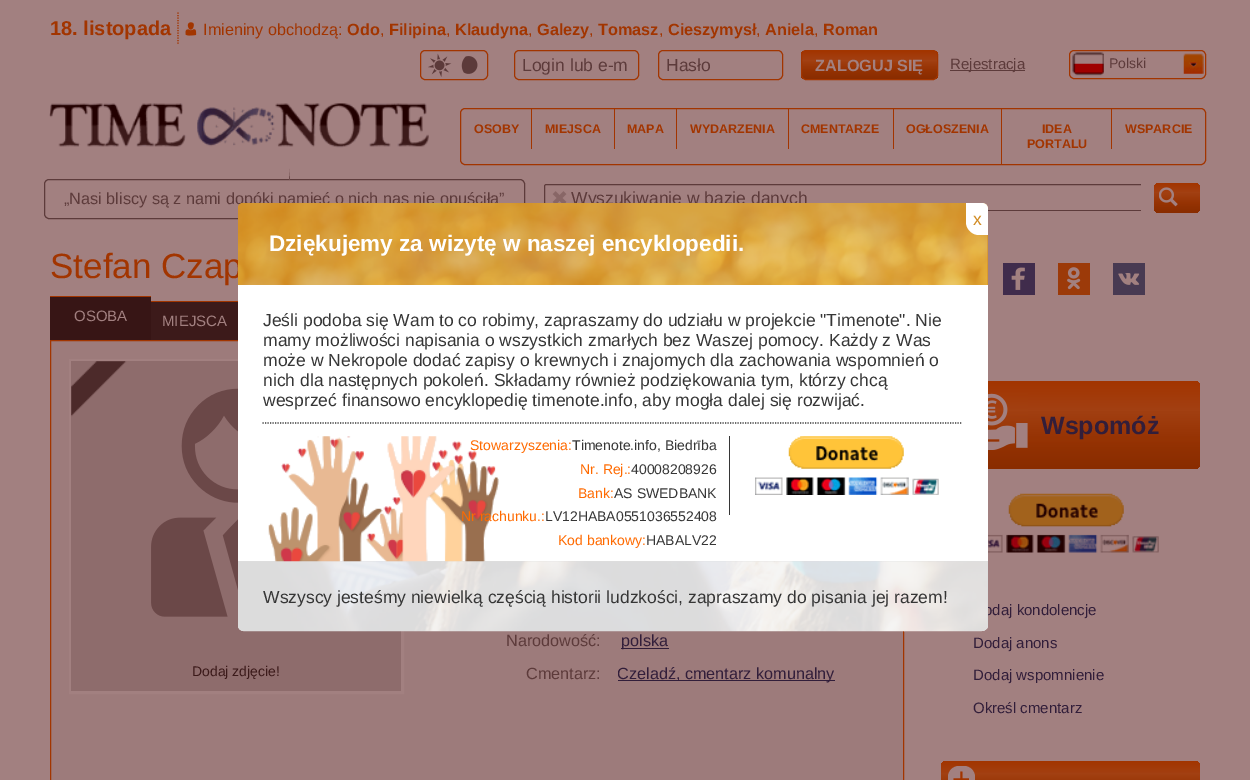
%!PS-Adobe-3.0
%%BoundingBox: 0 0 1250 780
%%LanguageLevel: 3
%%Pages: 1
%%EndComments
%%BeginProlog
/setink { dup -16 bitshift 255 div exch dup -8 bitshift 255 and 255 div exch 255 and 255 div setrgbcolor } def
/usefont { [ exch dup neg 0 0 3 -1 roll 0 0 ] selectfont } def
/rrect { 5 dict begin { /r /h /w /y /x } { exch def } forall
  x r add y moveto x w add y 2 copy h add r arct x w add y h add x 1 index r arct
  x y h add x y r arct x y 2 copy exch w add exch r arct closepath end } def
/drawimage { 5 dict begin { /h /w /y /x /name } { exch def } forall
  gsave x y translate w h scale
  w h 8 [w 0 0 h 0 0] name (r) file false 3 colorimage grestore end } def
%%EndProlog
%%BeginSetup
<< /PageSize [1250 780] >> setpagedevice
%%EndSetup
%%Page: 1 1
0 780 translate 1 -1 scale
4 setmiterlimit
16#A28080 setink
0 0 1250 780 rectfill
/LiberationSans-Bold 20 usefont
16#A23500 setink
50 35 moveto (18. listopada) show
1.2 setlinewidth
[1.25 1.25] 0 setdash
178 12.5 moveto 178 45 lineto stroke
(img1.raw) 185 22 12 14 drawimage
/LiberationSans-Regular 16.25 usefont
203 35 moveto (Imieniny obchodzą:) show
/LiberationSans-Bold 16.25 usefont
347 35 moveto (Odo) show
/LiberationSans-Regular 16.25 usefont
380 35 moveto (,) show
/LiberationSans-Bold 16.25 usefont
389 35 moveto (Filipina) show
/LiberationSans-Regular 16.25 usefont
446 35 moveto (,) show
/LiberationSans-Bold 16.25 usefont
455 35 moveto (Klaudyna) show
/LiberationSans-Regular 16.25 usefont
528 35 moveto (,) show
/LiberationSans-Bold 16.25 usefont
537 35 moveto (Galezy) show
/LiberationSans-Regular 16.25 usefont
589 35 moveto (,) show
/LiberationSans-Bold 16.25 usefont
598 35 moveto (Tomasz) show
/LiberationSans-Regular 16.25 usefont
659 35 moveto (,) show
/LiberationSans-Bold 16.25 usefont
668 35 moveto (Cieszymysł) show
/LiberationSans-Regular 16.25 usefont
756 35 moveto (,) show
/LiberationSans-Bold 16.25 usefont
765 35 moveto (Aniela) show
/LiberationSans-Regular 16.25 usefont
814 35 moveto (,) show
/LiberationSans-Bold 16.25 usefont
823 35 moveto (Roman) show
(img2.raw) 49 103 380 45 drawimage
1 setlinewidth
[] 0 setdash
420.5 50.5 67 29 4.5 rrect stroke
(img3.raw) 428 53 24 24 drawimage
(img4.raw) 461 56 17 18 drawimage
514.5 50.5 124 29 4.5 rrect stroke
/LiberationSans-Regular 17.5 usefont
16#5D3B3B setink
522 71 moveto (Login lub e-m) show
16#A23500 setink
658.5 50.5 124 29 4.5 rrect stroke
16#5D3B3B setink
666 71 moveto (Hasło) show
gsave
801 50 137 30 5 rrect clip newpath
gsave 801 51 moveto 938 51 lineto 938 79 lineto 801 79 lineto closepath clip newpath
<< /ShadingType 2 /ColorSpace /DeviceRGB /Coords [869 51 869 79] /Extend [true true] /Function << /FunctionType 3 /Domain [0 1] /Functions [<< /FunctionType 2 /Domain [0 1] /C0 [0.635 0.208 0] /C1 [0.635 0.251 0.071] /N 1 >> << /FunctionType 2 /Domain [0 1] /C0 [0.635 0.251 0.071] /C1 [0.588 0.2 0.012] /N 1 >> << /FunctionType 2 /Domain [0 1] /C0 [0.588 0.2 0.012] /C1 [0.537 0.173 0] /N 1 >>] /Bounds [0.33 0.66] /Encode [0 1 0 1 0 1] >> >> shfill grestore
grestore
16#A23500 setink
801.5 50.5 136 29 4.5 rrect stroke
/LiberationSans-Bold 16.25 usefont
16#A28080 setink
815 71 moveto (ZALOGUJ SIĘ) show
16#5D3B3B setink
950 70 75 1 rectfill
/LiberationSans-Regular 15 usefont
950 69 moveto (Rejestracja) show
16#A23500 setink
1069.5 50.5 136 28 4.5 rrect stroke
(img5.raw) 1072 52 32 24 drawimage
/LiberationSans-Regular 14 usefont
16#5D3B3B setink
1109 68 moveto (Polski) show
(img6.raw) 1183 53 21 21 drawimage
16#A23500 setink
460.5 108.5 745 56 4.5 rrect stroke
/LiberationSans-Bold 12.5 usefont
474 133 moveto (OSOBY) show
531 109 1 40 rectfill
545 133 moveto (MIEJSCA) show
614 109 1 40 rectfill
627 133 moveto (MAPA) show
676 109 1 40 rectfill
690 133 moveto (WYDARZENIA) show
788 109 1 40 rectfill
801 133 moveto (CMENTARZE) show
893 109 1 40 rectfill
906 133 moveto (OGŁOSZENIA) show
1001 109 1 55 rectfill
1042 133 moveto (IDEA) show
1027 148 moveto (PORTALU) show
1111 109 1 40 rectfill
1125 133 moveto (WSPARCIE) show
16#5D3B3B setink
44.5 179.5 480 39 4.5 rrect stroke
290 180 moveto 289 180 lineto 290 165 lineto closepath fill
16#A28080 setink
289 180 moveto 289 165 lineto 290 165 lineto closepath fill
/LiberationSans-Regular 16.25 usefont
16#5D3B3B setink
64 204 moveto („Nasi bliscy są z nami dopóki pamięć o nich nas nie opuściła”) show
gsave 1154 183 46 30 5 rrect clip newpath
<< /ShadingType 2 /ColorSpace /DeviceRGB /Coords [1177 183 1177 213] /Extend [true true] /Function << /FunctionType 3 /Domain [0 1] /Functions [<< /FunctionType 2 /Domain [0 1] /C0 [0.635 0.208 0] /C1 [0.635 0.251 0.071] /N 1 >> << /FunctionType 2 /Domain [0 1] /C0 [0.635 0.251 0.071] /C1 [0.588 0.2 0.012] /N 1 >> << /FunctionType 2 /Domain [0 1] /C0 [0.588 0.2 0.012] /C1 [0.537 0.173 0] /N 1 >>] /Bounds [0.33 0.66] /Encode [0 1 0 1 0 1] >> >> shfill grestore
gsave
544 179 597 32 rectclip
544.5 184.5 611 26 2 rrect stroke
grestore
(img7.raw) 552 191 15 12 drawimage
/LiberationSans-Regular 17.5 usefont
571 204 moveto (Wyszukiwanie w bazie danych) show
(img8.raw) 1159 187 19 20 drawimage
/LiberationSans-Regular 35 usefont
16#A23500 setink
50 278 moveto (Stefan Czap) show
151 301 92 1 rectfill
16#9D7B7B setink
50.5 340.5 moveto 903.5 340.5 lineto 903.5 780.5 lineto 50.5 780.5 lineto closepath gsave fill grestore
16#A23500 setink
stroke
16#A28080 setink
3 setlinewidth
70.5 360.5 332 332 rectstroke
16#8E6C6C setink
71 361 330 330 rectfill
gsave 941 381 259 88 5 rrect clip newpath
<< /ShadingType 2 /ColorSpace /DeviceRGB /Coords [1071 381 1071 469] /Extend [true true] /Function << /FunctionType 3 /Domain [0 1] /Functions [<< /FunctionType 2 /Domain [0 1] /C0 [0.635 0.208 0] /C1 [0.635 0.251 0.071] /N 1 >> << /FunctionType 2 /Domain [0 1] /C0 [0.635 0.251 0.071] /C1 [0.588 0.2 0.012] /N 1 >> << /FunctionType 2 /Domain [0 1] /C0 [0.588 0.2 0.012] /C1 [0.537 0.173 0] /N 1 >>] /Bounds [0.33 0.66] /Encode [0 1 0 1 0 1] >> >> shfill grestore
/LiberationSans-Regular 15 usefont
16#321E3A setink
984 615 moveto (odaj kondolencje) show
16#FFFFFF setink
238 203 750 428 6 rrect fill
16#D18B21 setink
244 203 moveto 982 203 lineto 985.5 203 988 205.5 988 209 curveto 988 285 lineto 238 285 lineto 238 209 lineto 238 205.5 240.5 203 244 203 curveto closepath fill
(img9.raw) 238 203 750 82 drawimage
16#FFFFFF setink
966 203 moveto 982 203 lineto 985.5 203 988 205.5 988 209 curveto 988 235 lineto 979 235 lineto 972 235 966 229 966 222 curveto closepath fill
/LiberationSans-Regular 17.5 usefont
16#D18B21 setink
973 225 moveto (x) show
/LiberationSans-Bold 22.5 usefont
16#FFFFFF setink
269 251 moveto (Dziękujemy za wizytę w naszej encyklopedii.) show
/LiberationSans-Regular 17.5 usefont
16#363636 setink
[
    [(Jeśli podoba się Wam to co robimy, zapraszamy do udziału w projekcie "Timenote". Nie) 263 326]
    [(mamy możliwości napisania o wszystkich zmarłych bez Waszej pomocy. Każdy z Was) 263 346]
    [(może w Nekropole dodać zapisy o krewnych i znajomych dla zachowania wspomnień o) 263 366]
    [(nich dla następnych pokoleń. Składamy również podziękowania tym, którzy chcą) 263 386]
    [(wesprzeć finansowo encyklopedię timenote.info, aby mogła dalej się rozwijać.) 263 406]
] { aload pop moveto show } forall
1.2 setlinewidth
[1.25 1.25] 0 setdash
262.5 423 moveto 962.5 423 lineto stroke
16#DEDEDE setink
238 561 moveto 988 561 lineto 988 625 lineto 988 628.5 985.5 631 982 631 curveto 244 631 lineto 240.5 631 238 628.5 238 625 curveto closepath fill
(img12.raw) 238 561 749 71 drawimage
(img10.raw) 268 436 231 126 drawimage
/LiberationSans-Regular 14 usefont
16#FF6A00 setink
470 450 moveto (Stowarzyszenia:) show
16#363636 setink
572 450 moveto (Timenote.info, Biedrība) show
16#FF6A00 setink
580 474 moveto (Nr. Rej.:) show
16#363636 setink
631 474 moveto (40008208926) show
16#FF6A00 setink
578 498 moveto (Bank:) show
16#363636 setink
614 498 moveto (AS SWEDBANK) show
16#FF6A00 setink
461 521 moveto (Nr rachunku.:) show
16#363636 setink
545 521 moveto (LV12HABA0551036552408) show
16#FF6A00 setink
558 545 moveto (Kod bankowy:) show
16#363636 setink
646 545 moveto (HABALV22) show
729 436 1 79 rectfill
(img11.raw) 755 436 184 59 drawimage
/LiberationSans-Regular 17.5 usefont
263 603 moveto (Wszyscy jesteśmy niewielką częścią historii ludzkości, zapraszamy do pisania jej razem!) show
16#371515 setink
50 297 101 43 rectfill
16#A23500 setink
50 296 101 1 rectfill
/LiberationSans-Regular 15 usefont
16#A28080 setink
74 321 moveto (OSOBA) show
16#3C1A1A setink
151 302 87 38 rectfill
16#A28080 setink
162 326 moveto (MIEJSCA) show
(img13.raw) 71 361 56 56 drawimage
(img14.raw) 151 388 87 229 drawimage
/LiberationSans-Regular 14 usefont
16#3C1A1A setink
192 676 moveto (Dodaj zdjęcie!) show
/LiberationSans-Regular 16.25 usefont
16#5D3B3B setink
506 646 moveto (Narodowość:) show
16#321E3A setink
621 648 48 1 rectfill
621 646 moveto (polska) show
16#5D3B3B setink
526 679 moveto (Cmentarz:) show
16#321E3A setink
618 680 217 1 rectfill
gsave
618 658 267 32 rectclip
617 679 moveto (Czeladź, cmentarz komunalny) show
grestore
(img15.raw) 1003 263 32 32 drawimage
(img16.raw) 1058 263 32 32 drawimage
(img17.raw) 1113 263 32 32 drawimage
(img18.raw) 988 393 40 57 drawimage
/LiberationSans-Bold 25 usefont
1041 434 moveto (Wspomóż) show
(img19.raw) 988 493 171 60 drawimage
/LiberationSans-Regular 15 usefont
[
    [(Dodaj anons) 973 648]
    [(Dodaj wspomnienie) 973 680]
    [(Określ cmentarz) 973 713]
] { aload pop moveto show } forall
gsave 941 761 259 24 5 rrect clip newpath
<< /ShadingType 2 /ColorSpace /DeviceRGB /Coords [1071 761 1071 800] /Extend [true true] /Function << /FunctionType 3 /Domain [0 1] /Functions [<< /FunctionType 2 /Domain [0 1] /C0 [0.635 0.208 0] /C1 [0.635 0.251 0.071] /N 1 >> << /FunctionType 2 /Domain [0 1] /C0 [0.635 0.251 0.071] /C1 [0.588 0.2 0.012] /N 1 >> << /FunctionType 2 /Domain [0 1] /C0 [0.588 0.2 0.012] /C1 [0.537 0.173 0] /N 1 >>] /Bounds [0.33 0.66] /Encode [0 1 0 1 0 1] >> >> shfill grestore
16#A28080 setink
948 766 27 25 11 rrect fill
/LiberationSans-Regular 32 usefont
16#A23500 setink
952 790 moveto (+) show
showpage
%%EOF
